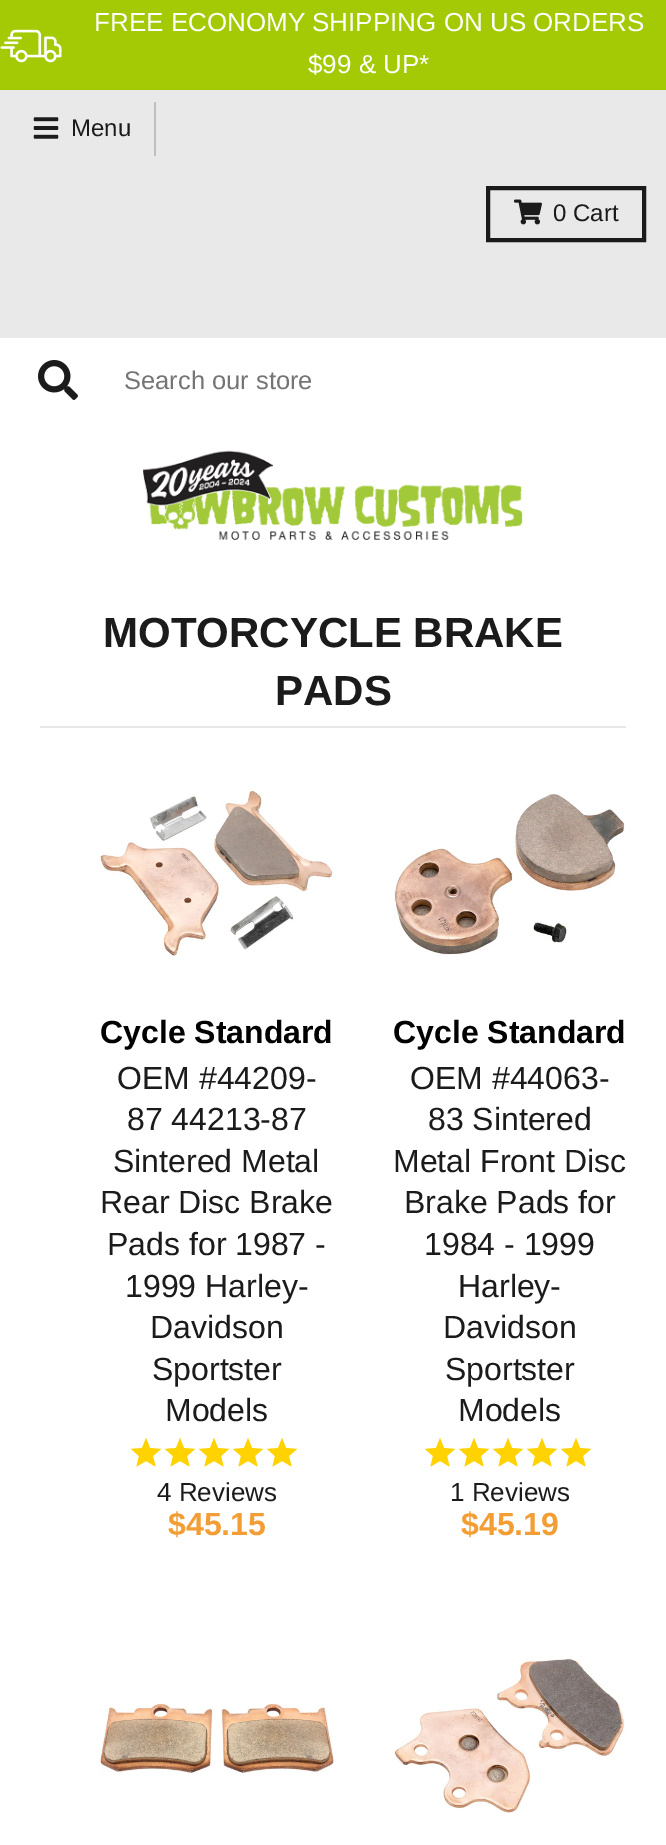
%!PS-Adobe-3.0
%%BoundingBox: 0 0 666 1845
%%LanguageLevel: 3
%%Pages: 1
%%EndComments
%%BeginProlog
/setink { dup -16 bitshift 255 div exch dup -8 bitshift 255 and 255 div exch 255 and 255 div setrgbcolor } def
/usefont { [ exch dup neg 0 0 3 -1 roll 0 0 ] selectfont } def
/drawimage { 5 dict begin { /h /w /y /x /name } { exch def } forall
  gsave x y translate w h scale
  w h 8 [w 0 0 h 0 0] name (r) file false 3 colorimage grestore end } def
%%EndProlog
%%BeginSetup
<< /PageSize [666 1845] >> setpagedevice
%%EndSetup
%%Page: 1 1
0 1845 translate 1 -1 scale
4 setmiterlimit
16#FFFFFF setink
0 0 666 1845 rectfill
16#A3CA05 setink
0 0 666 90 rectfill
/LiberationSans-Regular 26 usefont
16#FFFFFF setink
94 31 moveto (FREE ECONOMY SHIPPING ON US ORDERS) show
(img1.raw) 0 29 62 34 drawimage
308 73 moveto ($99 & UP*) show
16#E9E9E9 setink
0 90 666 248 rectfill
16#BFBFBF setink
154 102 2 54 rectfill
(img2.raw) 33 117 26 22 drawimage
/LiberationSans-Regular 24 usefont
16#1B1B1B setink
71 136 moveto (Menu) show
4 setlinewidth
488 188 156 52 rectstroke
(img3.raw) 514 199 28 26 drawimage
553 221 moveto (0 Cart) show
(img4.raw) 38 360 40 40 drawimage
/LiberationSans-Regular 25.5 usefont
16#757575 setink
124 389 moveto (Search our store) show
(img5.raw) 143 450 380 90 drawimage
16#E8E8E8 setink
40 726 586 2 rectfill
/LiberationSans-Bold 42 usefont
16#1B1B1B setink
103 647 moveto (MOTORCYCLE BRAKE) show
275 705 moveto (PADS) show
(img6.raw) 100 789 233 168 drawimage
/LiberationSans-Bold 32 usefont
16#000000 setink
100 1043 moveto (Cycle Standard) show
/LiberationSans-Regular 32 usefont
16#1B1B1B setink
[
    [(OEM #44209-) 117 1089]
    [(87 44213-87) 127 1130]
    [(Sintered Metal) 113 1172]
    [(Rear Disc Brake) 100 1213]
    [(Pads for 1987 -) 107 1255]
    [(1999 Harley-) 125 1297]
    [(Davidson) 150 1338]
    [(Sportster) 152 1380]
    [(Models) 165 1421]
] { aload pop moveto show } forall
16#FFD200 setink
146 1461 moveto 136.5 1466.5 lineto 139 1456 lineto 131 1449 lineto 142 1448 lineto 146 1438 lineto 150 1448 lineto 161 1449 lineto 153 1456 lineto 155.5 1466.5 lineto closepath fill
180 1461 moveto 170.5 1466.5 lineto 173 1456 lineto 165 1449 lineto 176 1448 lineto 180 1438 lineto 184 1448 lineto 195 1449 lineto 187 1456 lineto 189.5 1466.5 lineto closepath fill
214 1461 moveto 204.5 1466.5 lineto 207 1456 lineto 199 1449 lineto 210 1448 lineto 214 1438 lineto 218 1448 lineto 229 1449 lineto 221 1456 lineto 223.5 1466.5 lineto closepath fill
248 1461 moveto 238.5 1466.5 lineto 241 1456 lineto 233 1449 lineto 244 1448 lineto 248 1438 lineto 252 1448 lineto 263 1449 lineto 255 1456 lineto 257.5 1466.5 lineto closepath fill
282 1461 moveto 272.5 1466.5 lineto 275 1456 lineto 267 1449 lineto 278 1448 lineto 282 1438 lineto 286 1448 lineto 297 1449 lineto 289 1456 lineto 291.5 1466.5 lineto closepath fill
/LiberationSans-Regular 26 usefont
16#1B1B1B setink
157 1501 moveto (4 Reviews) show
/LiberationSans-Bold 32 usefont
16#F39D35 setink
168 1535 moveto ($45.15) show
(img7.raw) 394 793 231 162 drawimage
16#000000 setink
393 1043 moveto (Cycle Standard) show
/LiberationSans-Regular 32 usefont
16#1B1B1B setink
[
    [(OEM #44063-) 410 1089]
    [(83 Sintered) 428 1130]
    [(Metal Front Disc) 393 1172]
    [(Brake Pads for) 404 1213]
    [(1984 - 1999) 424 1255]
    [(Harley-) 458 1297]
    [(Davidson) 443 1338]
    [(Sportster) 445 1380]
    [(Models) 458 1421]
] { aload pop moveto show } forall
16#FFD200 setink
440 1461 moveto 430.5 1466.5 lineto 433 1456 lineto 425 1449 lineto 436 1448 lineto 440 1438 lineto 444 1448 lineto 455 1449 lineto 447 1456 lineto 449.5 1466.5 lineto closepath fill
474 1461 moveto 464.5 1466.5 lineto 467 1456 lineto 459 1449 lineto 470 1448 lineto 474 1438 lineto 478 1448 lineto 489 1449 lineto 481 1456 lineto 483.5 1466.5 lineto closepath fill
508 1461 moveto 498.5 1466.5 lineto 501 1456 lineto 493 1449 lineto 504 1448 lineto 508 1438 lineto 512 1448 lineto 523 1449 lineto 515 1456 lineto 517.5 1466.5 lineto closepath fill
542 1461 moveto 532.5 1466.5 lineto 535 1456 lineto 527 1449 lineto 538 1448 lineto 542 1438 lineto 546 1448 lineto 557 1449 lineto 549 1456 lineto 551.5 1466.5 lineto closepath fill
576 1461 moveto 566.5 1466.5 lineto 569 1456 lineto 561 1449 lineto 572 1448 lineto 576 1438 lineto 580 1448 lineto 591 1449 lineto 583 1456 lineto 585.5 1466.5 lineto closepath fill
/LiberationSans-Regular 26 usefont
16#1B1B1B setink
450 1501 moveto (1 Reviews) show
/LiberationSans-Bold 32 usefont
16#F39D35 setink
461 1535 moveto ($45.19) show
(img8.raw) 100 1702 234 71 drawimage
(img9.raw) 394 1659 231 154 drawimage
showpage
%%EOF
